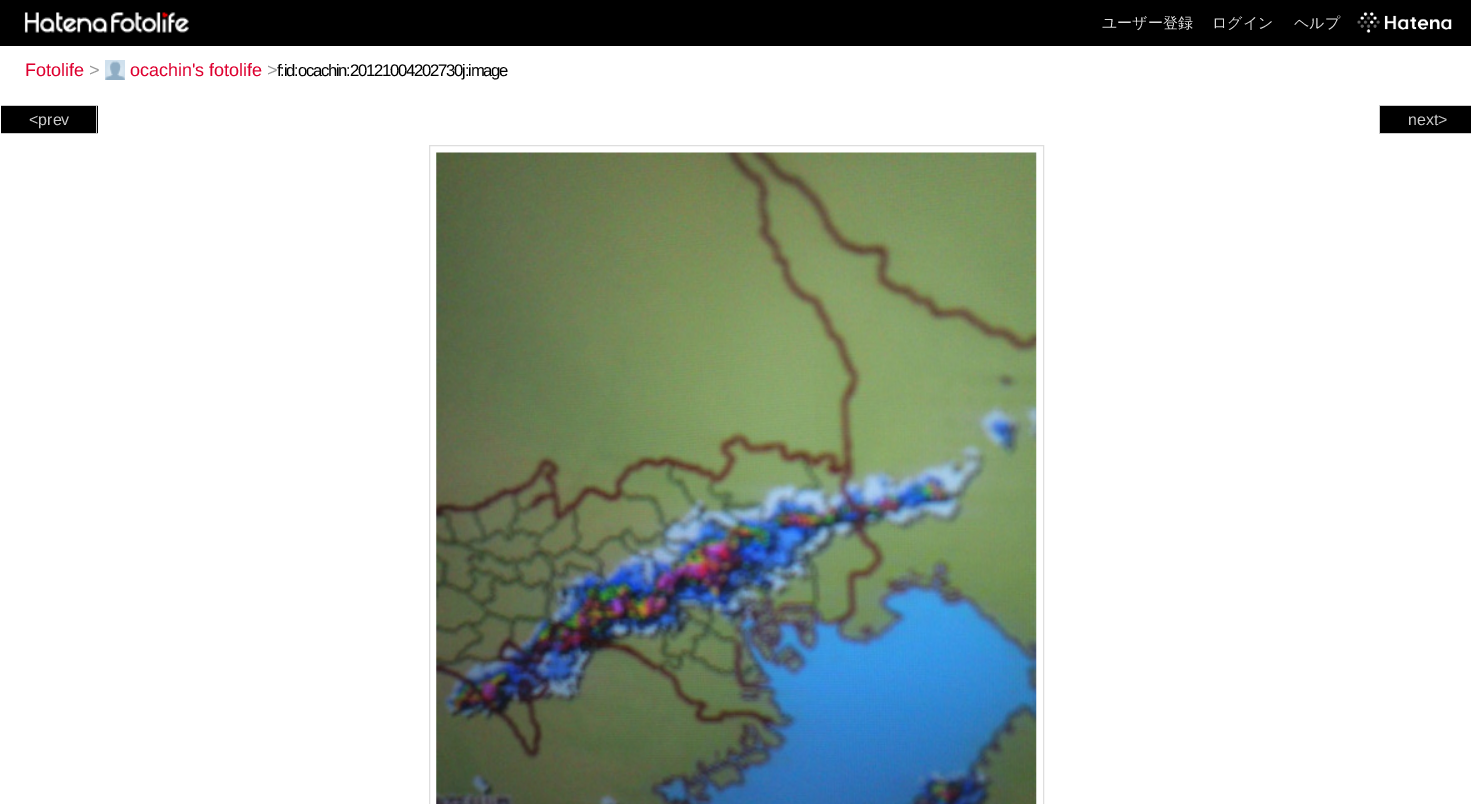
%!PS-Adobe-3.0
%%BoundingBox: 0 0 1471 804
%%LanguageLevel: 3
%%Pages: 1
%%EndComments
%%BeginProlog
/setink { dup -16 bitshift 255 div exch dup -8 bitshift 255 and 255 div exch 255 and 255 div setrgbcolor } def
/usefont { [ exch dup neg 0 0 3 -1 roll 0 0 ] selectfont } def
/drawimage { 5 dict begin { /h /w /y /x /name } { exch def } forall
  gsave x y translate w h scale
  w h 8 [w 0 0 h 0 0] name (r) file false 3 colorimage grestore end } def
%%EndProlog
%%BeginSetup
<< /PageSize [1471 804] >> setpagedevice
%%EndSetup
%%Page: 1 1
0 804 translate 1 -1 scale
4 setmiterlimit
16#FFFFFF setink
0 0 1471 804 rectfill
16#000000 setink
0 0 1471 46 rectfill
(img1.raw) 24 12 84 21 drawimage
(img2.raw) 111 12 78 21 drawimage
/WenQuanYiZenHei-Medium 15 usefont
16#DDDDDD setink
[
    [(ユーザー登録) 1102 28]
    [(ログイン) 1212 28]
    [(ヘルプ) 1294 28]
] { aload pop moveto show } forall
(img3.raw) 1357 12 95 21 drawimage
/LiberationSans-Regular 18 usefont
16#DE002F setink
25 76 moveto (Fotolife) show
16#999999 setink
89 76 moveto (>) show
(img4.raw) 105 60 20 20 drawimage
16#DE002F setink
130 76 moveto (ocachin's fotolife) show
16#999999 setink
267 76 moveto (>) show
/LiberationSans-Regular 16.7 usefont
16#000000 setink
277 76 moveto -1.25 0 (f:id:ocachin:20121004202730j:image) ashow
[
    [1 106 97 27 16#000000]
    [1 105 97 1 16#CCCCCC]
    [96 105 1 29 16#CCCCCC]
    [1 133 97 1 16#CCCCCC]
] { aload pop setink rectfill } forall
/LiberationSans-Regular 16 usefont
29 125 moveto (<prev) show
[
    [1380 106 91 27 16#000000]
    [1379 105 92 1 16#CCCCCC]
    [1379 133 92 1 16#CCCCCC]
    [1379 105 1 29 16#CCCCCC]
] { aload pop setink rectfill } forall
1408 125 moveto (next>) show
16#DEDEDE setink
429.5 145.5 614 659 rectstroke
(img5.raw) 436 152 601 652 drawimage
showpage
%%EOF
